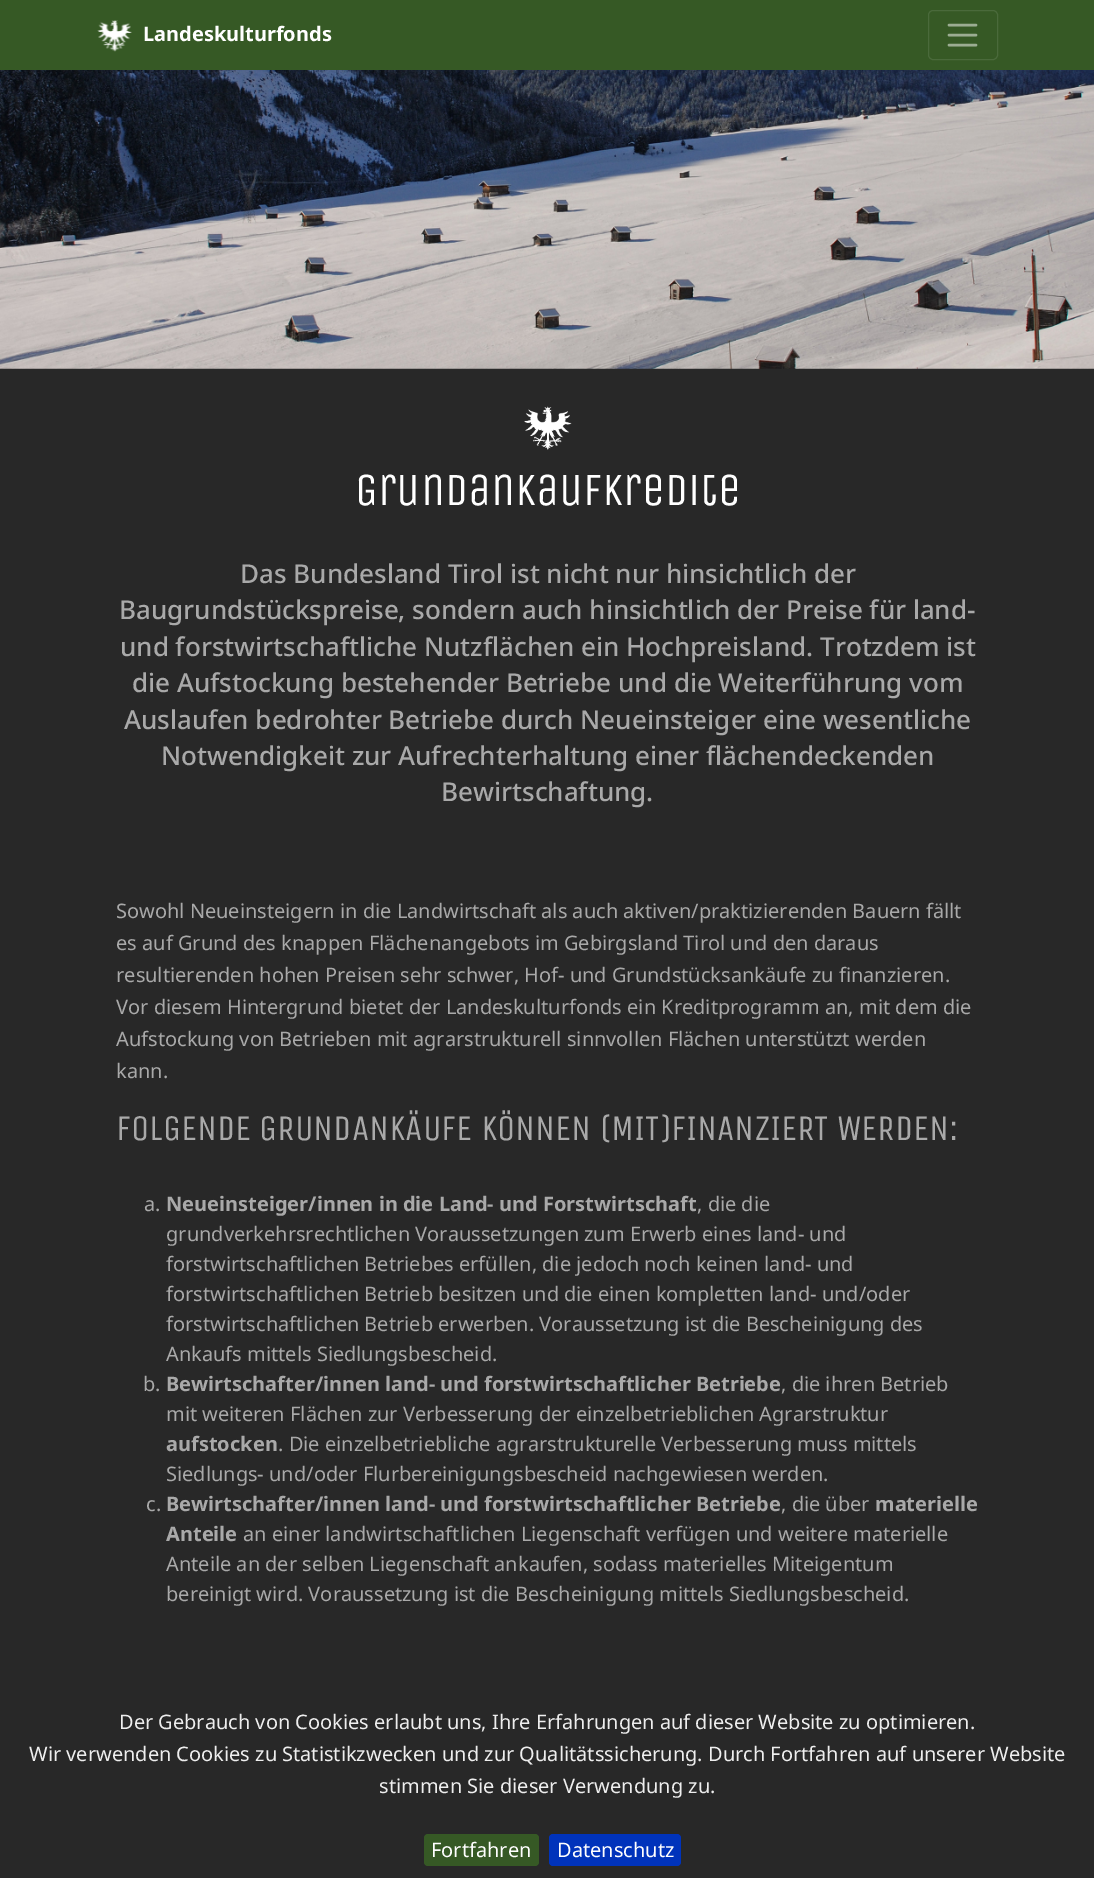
%!PS-Adobe-3.0
%%BoundingBox: 0 0 1094 1878
%%LanguageLevel: 3
%%Pages: 1
%%EndComments
%%BeginProlog
/setink { dup -16 bitshift 255 div exch dup -8 bitshift 255 and 255 div exch 255 and 255 div setrgbcolor } def
/usefont { [ exch dup neg 0 0 3 -1 roll 0 0 ] selectfont } def
/rrect { 5 dict begin { /r /h /w /y /x } { exch def } forall
  x r add y moveto x w add y 2 copy h add r arct x w add y h add x 1 index r arct
  x y h add x y r arct x y 2 copy exch w add exch r arct closepath end } def
/drawimage { 5 dict begin { /h /w /y /x /name } { exch def } forall
  gsave x y translate w h scale
  w h 8 [w 0 0 h 0 0] name (r) file false 3 colorimage grestore end } def
%%EndProlog
%%BeginSetup
<< /PageSize [1094 1878] >> setpagedevice
%%EndSetup
%%Page: 1 1
0 1878 translate 1 -1 scale
4 setmiterlimit
16#282828 setink
0 0 1094 1878 rectfill
16#365925 setink
0 0 1094 70 rectfill
(img1.raw) 97 20 35 32 drawimage
/NotoSans-Bold 20 usefont
16#FFFFFF setink
143 41 moveto (Landeskulturfonds) show
16#4A6A3B setink
928.5 10.5 69 49 4.5 rrect stroke
16#9BAC92 setink
2.5 setlinewidth
1 setlinecap
949 25 moveto 976 25 lineto 949 35 moveto 976 35 lineto 949 45 moveto 976 45 lineto stroke
(img2.raw) 0 70 1094 299 drawimage
(img3.raw) 524 406 48 44 drawimage
/UnicaOne-Regular 46 usefont
16#FFFFFF setink
355 505 moveto (Grundankaufkredite) show
/NotoSans-Medium 26 usefont
16#A9A9A9 setink
[
    [(Das Bundesland Tirol ist nicht nur hinsichtlich der) 240 583]
    [(Baugrundstückspreise, sondern auch hinsichtlich der Preise für land-) 119 619]
    [(und forstwirtschaftliche Nutzflächen ein Hochpreisland. Trotzdem ist) 120 656]
    [(die Aufstockung bestehender Betriebe und die Weiterführung vom) 132 692]
    [(Auslaufen bedrohter Betriebe durch Neueinsteiger eine wesentliche) 124 729]
    [(Notwendigkeit zur Aufrechterhaltung einer flächendeckenden) 161 765]
    [(Bewirtschaftung.) 441 801]
] { aload pop moveto show } forall
/NotoSans-Regular 20 usefont
[
    [(Sowohl Neueinsteigern in die Landwirtschaft als auch aktiven/praktizierenden Bauern fällt) 116 918]
    [(es auf Grund des knappen Flächenangebots im Gebirgsland Tirol und den daraus) 116 950]
    [(resultierenden hohen Preisen sehr schwer, Hof- und Grundstücksankäufe zu finanzieren.) 116 982]
    [(Vor diesem Hintergrund bietet der Landeskulturfonds ein Kreditprogramm an, mit dem die) 116 1014]
    [(Aufstockung von Betrieben mit agrarstrukturell sinnvollen Flächen unterstützt werden) 116 1046]
    [(kann.) 116 1078]
] { aload pop moveto show } forall
/UnicaOne-Regular 36 usefont
116 1140 moveto (FOLGENDE GRUNDANKÄUFE KÖNNEN \(MIT\)FINANZIERT WERDEN:) show
/NotoSans-Regular 20 usefont
144 1211 moveto (a.) show
/NotoSans-Bold 20 usefont
166 1211 moveto (Neueinsteiger/innen in die Land- und Forstwirtschaft) show
/NotoSans-Regular 20 usefont
[
    [(, die die) 697 1211]
    [(grundverkehrsrechtlichen Voraussetzungen zum Erwerb eines land- und) 166 1241]
    [(forstwirtschaftlichen Betriebes erfüllen, die jedoch noch keinen land- und) 166 1271]
    [(forstwirtschaftlichen Betrieb besitzen und die einen kompletten land- und/oder) 166 1301]
    [(forstwirtschaftlichen Betrieb erwerben. Voraussetzung ist die Bescheinigung des) 166 1331]
    [(Ankaufs mittels Siedlungsbescheid.) 166 1361]
    [(b.) 143 1391]
] { aload pop moveto show } forall
/NotoSans-Bold 20 usefont
166 1391 moveto (Bewirtschafter/innen land- und forstwirtschaftlicher Betriebe) show
/NotoSans-Regular 20 usefont
781 1391 moveto (, die ihren Betrieb) show
166 1421 moveto (mit weiteren Flächen zur Verbesserung der einzelbetrieblichen Agrarstruktur) show
/NotoSans-Bold 20 usefont
166 1451 moveto (aufstocken) show
/NotoSans-Regular 20 usefont
[
    [(. Die einzelbetriebliche agrarstrukturelle Verbesserung muss mittels) 278 1451]
    [(Siedlungs- und/oder Flurbereinigungsbescheid nachgewiesen werden.) 166 1481]
    [(c.) 146 1511]
] { aload pop moveto show } forall
/NotoSans-Bold 20 usefont
166 1511 moveto (Bewirtschafter/innen land- und forstwirtschaftlicher Betriebe) show
/NotoSans-Regular 20 usefont
781 1511 moveto (, die über) show
/NotoSans-Bold 20 usefont
875 1511 moveto (materielle) show
166 1541 moveto (Anteile) show
/NotoSans-Regular 20 usefont
[
    [(an einer landwirtschaftlichen Liegenschaft verfügen und weitere materielle) 243 1541]
    [(Anteile an der selben Liegenschaft ankaufen, sodass materielles Miteigentum) 166 1571]
    [(bereinigt wird. Voraussetzung ist die Bescheinigung mittels Siedlungsbescheid.) 166 1601]
] { aload pop moveto show } forall
16#EEEEEE setink
[
    [(Der Gebrauch von Cookies erlaubt uns, Ihre Erfahrungen auf dieser Website zu optimieren.) 119 1729]
    [(Wir verwenden Cookies zu Statistikzwecken und zur Qualitätssicherung. Durch Fortfahren auf unserer Website) 29 1761]
    [(stimmen Sie dieser Verwendung zu.) 379 1793]
] { aload pop moveto show } forall
16#365925 setink
424 1834 115 32 4 rrect fill
16#FFFFFF setink
431 1857 moveto (Fortfahren) show
16#0033BB setink
549 1834 132 32 4 rrect fill
16#FFFFFF setink
557 1857 moveto (Datenschutz) show
showpage
%%EOF
